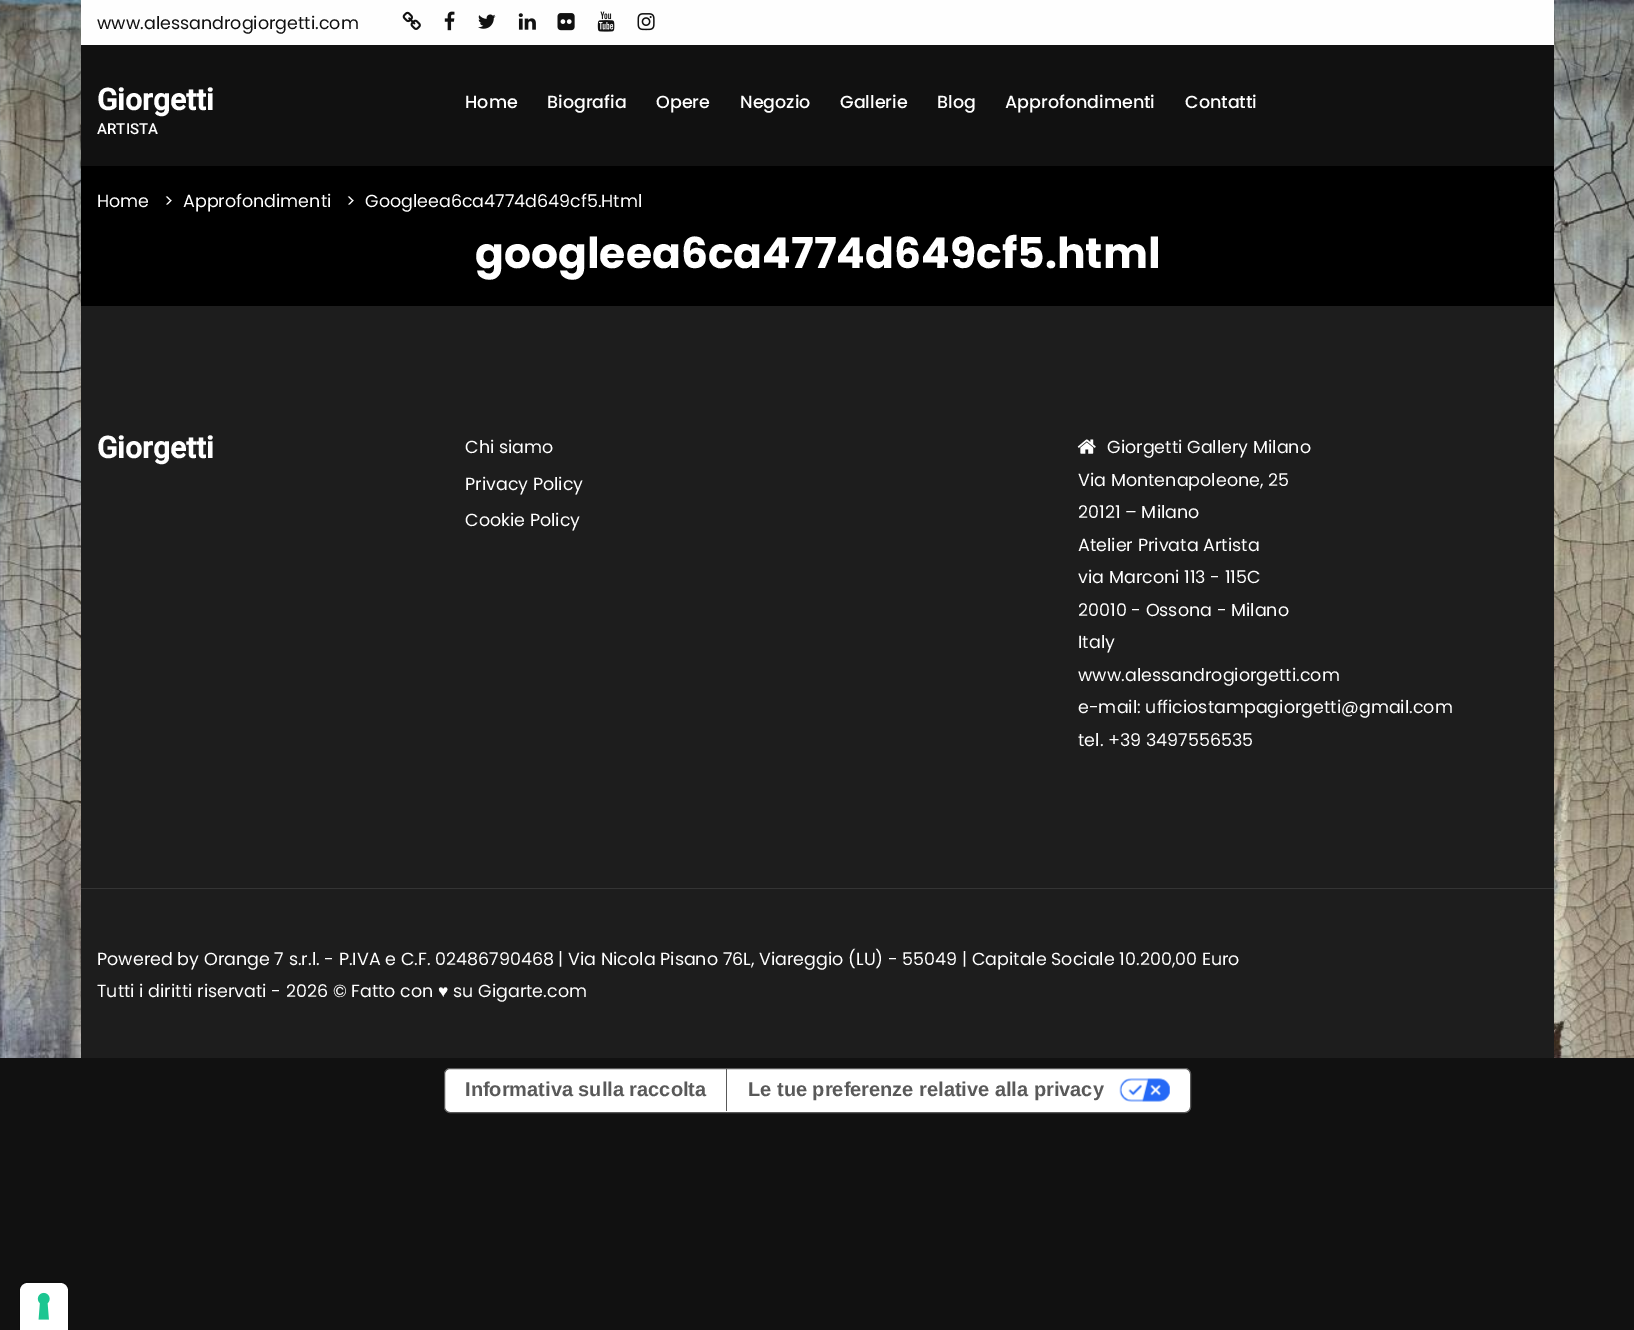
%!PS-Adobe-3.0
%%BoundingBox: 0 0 1634 1330
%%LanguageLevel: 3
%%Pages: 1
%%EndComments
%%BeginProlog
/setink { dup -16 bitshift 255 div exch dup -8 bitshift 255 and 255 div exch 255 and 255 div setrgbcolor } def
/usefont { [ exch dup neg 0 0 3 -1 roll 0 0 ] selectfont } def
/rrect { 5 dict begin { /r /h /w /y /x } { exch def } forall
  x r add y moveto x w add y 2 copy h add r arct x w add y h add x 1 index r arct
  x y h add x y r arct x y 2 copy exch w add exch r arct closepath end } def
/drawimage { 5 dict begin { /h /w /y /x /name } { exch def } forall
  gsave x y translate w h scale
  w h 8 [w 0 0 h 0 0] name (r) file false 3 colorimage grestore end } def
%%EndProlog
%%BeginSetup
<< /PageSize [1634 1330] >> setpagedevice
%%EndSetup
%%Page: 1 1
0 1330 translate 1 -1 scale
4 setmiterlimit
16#111111 setink
0 0 1634 1330 rectfill
(img1.raw) 0 0 1634 1058 drawimage
16#000000 setink
81 166 1473 140 rectfill
16#FEFEFE setink
81 0 1473 45 rectfill
/Poppins-Regular 17.5 usefont
16#111111 setink
97 29 moveto (www.alessandrogiorgetti.com) show
(img2.raw) 402 11 19 19 drawimage
(img3.raw) 444 11 11 20 drawimage
(img4.raw) 478 14 18 15 drawimage
(img5.raw) 518 13 18 17 drawimage
(img6.raw) 557 13 18 18 drawimage
(img7.raw) 597 11 18 21 drawimage
(img8.raw) 637 13 18 18 drawimage
81 45 1473 121 rectfill
/Roboto-Bold 30 usefont
16#FFFFFF setink
97 110 moveto (Giorgetti) show
/Roboto-Medium 15 usefont
97 134 moveto (ARTISTA) show
/Poppins-Medium 17.5 usefont
[
    [(Home) 465 108]
    [(Biografia) 547 108]
    [(Opere) 656 108]
    [(Negozio) 740 108]
    [(Gallerie) 840 108]
    [(Blog) 937 108]
    [(Approfondimenti) 1005 108]
    [(Contatti) 1185 108]
] { aload pop moveto show } forall
/Poppins-Regular 17.5 usefont
[
    [(Home) 97 207]
    [(>) 164 207]
    [(Approfondimenti) 183 207]
    [(>) 346 207]
    [(Googleea6ca4774d649cf5.Html) 365 207]
] { aload pop moveto show } forall
/Poppins-Bold 42.5 usefont
475 268 moveto (googleea6ca4774d649cf5.html) show
16#1D1D1D setink
81 306 1473 752 rectfill
/Roboto-Bold 30 usefont
16#FFFFFF setink
97 458 moveto (Giorgetti) show
/Poppins-Regular 17.5 usefont
[
    [(Chi siamo) 465 453]
    [(Privacy Policy) 465 490]
    [(Cookie Policy) 465 526]
] { aload pop moveto show } forall
(img9.raw) 1077 439 19 15 drawimage
[
    [(Giorgetti Gallery Milano) 1107 453]
    [(Via Montenapoleone, 25) 1078 486]
    [(20121 – Milano) 1078 518]
    [(Atelier Privata Artista) 1078 551]
    [(via Marconi 113 - 115C) 1078 583]
    [(20010 - Ossona - Milano) 1078 616]
    [(Italy) 1078 648]
    [(www.alessandrogiorgetti.com) 1078 681]
    [(e-mail: ufficiostampagiorgetti@gmail.com) 1078 713]
    [(tel. +39 3497556535) 1078 746]
] { aload pop moveto show } forall
16#343434 setink
81 888 1473 1 rectfill
16#FFFFFF setink
97 965 moveto (Powered by Orange 7 s.r.l. - P.IVA e C.F. 02486790468 | Via Nicola Pisano 76L, Viareggio \(LU\) - 55049 | Capitale Sociale 10.200,00 Euro) show
97 997 moveto (Tutti i diritti riservati - 2026 © Fatto con) show
/LiberationSans-Regular 17.5 usefont
438 997 moveto (♥) show
/Poppins-Regular 17.5 usefont
453 997 moveto (su Gigarte.com) show
444.5 1068.5 746 44 5.5 rrect gsave fill grestore
16#595959 setink
stroke
/LiberationSans-Bold 20 usefont
465 1096 moveto (Informativa sulla raccolta) show
726 1069 1 42 rectfill
748 1096 moveto (Le tue preferenze relative alla privacy) show
(img10.raw) 1119 1078 51 24 drawimage
16#0E0E0E setink
28 1281.5 moveto 60 1281.5 lineto 64.5 1281.5 68.5 1285.5 68.5 1290 curveto 68.5 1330.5 lineto 19.5 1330.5 lineto 19.5 1290 lineto 19.5 1285.5 23.5 1281.5 28 1281.5 curveto closepath stroke
16#FFFFFF setink
28 1283 moveto 60 1283 lineto 64.5 1283 68 1286.5 68 1291 curveto 68 1330 lineto 20 1330 lineto 20 1291 lineto 20 1286.5 23.5 1283 28 1283 curveto closepath fill
(img11.raw) 37 1292 13 28 drawimage
showpage
%%EOF
